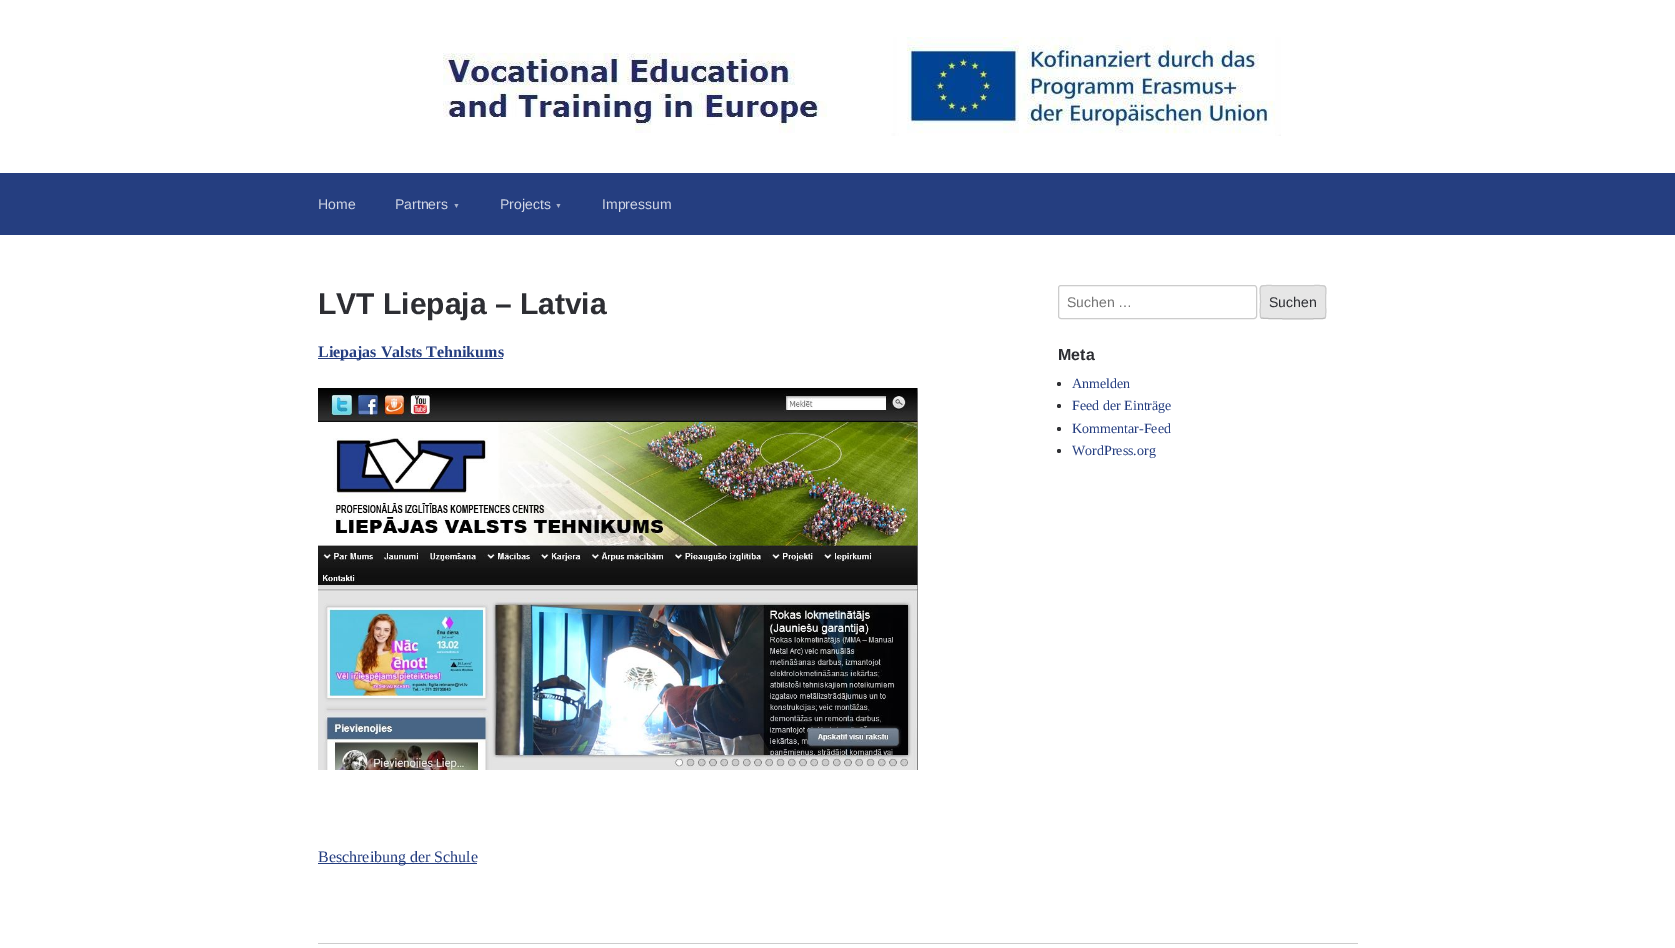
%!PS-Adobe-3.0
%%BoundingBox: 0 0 1675 948
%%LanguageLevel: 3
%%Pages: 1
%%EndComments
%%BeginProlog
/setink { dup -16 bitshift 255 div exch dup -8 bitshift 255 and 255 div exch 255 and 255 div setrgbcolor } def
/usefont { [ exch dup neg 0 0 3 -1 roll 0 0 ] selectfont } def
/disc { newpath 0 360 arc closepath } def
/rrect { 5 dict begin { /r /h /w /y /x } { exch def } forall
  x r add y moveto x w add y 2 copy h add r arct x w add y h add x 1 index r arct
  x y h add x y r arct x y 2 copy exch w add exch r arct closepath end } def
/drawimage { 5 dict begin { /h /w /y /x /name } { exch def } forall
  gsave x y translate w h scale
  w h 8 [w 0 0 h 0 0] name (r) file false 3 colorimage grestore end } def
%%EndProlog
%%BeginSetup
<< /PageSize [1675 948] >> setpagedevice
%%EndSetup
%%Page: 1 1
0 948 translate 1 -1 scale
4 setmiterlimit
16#FFFFFF setink
0 0 1675 948 rectfill
(img1.raw) 443 37 838 99 drawimage
16#253E80 setink
0 173 1675 62 rectfill
/LiberationSans-Regular 14 usefont
16#D3D8E6 setink
318 209 moveto (Home) show
395 209 moveto (Partners) show
/LiberationSans-Regular 7 usefont
16#A8B2CC setink
453 208 moveto (▼) show
/LiberationSans-Regular 14 usefont
16#D3D8E6 setink
500 209 moveto (Projects) show
/LiberationSans-Regular 7 usefont
16#A8B2CC setink
555 208 moveto (▼) show
/LiberationSans-Regular 14 usefont
16#D3D8E6 setink
602 209 moveto (Impressum) show
/LiberationSans-Bold 30 usefont
16#2D2E33 setink
318 314 moveto (LVT Liepaja – Latvia) show
16#253E80 setink
318 358 185 1 rectfill
/LiberationSerif-Bold 16 usefont
318 357 moveto (Liepajas Valsts Tehnikums) show
(img2.raw) 318 388 600 382 drawimage
318 863 159 1 rectfill
/LiberationSerif-Regular 16 usefont
318 862 moveto (Beschreibung der Schule) show
16#CCCCCC setink
1058.5 285.5 198 33 2.5 rrect stroke
/LiberationSans-Regular 14 usefont
16#757575 setink
1067 307 moveto (Suchen …) show
16#E6E6E6 setink
1260 285 66 34 3 rrect fill
16#BBBBBB setink
1325 318 moveto 1323 318.5 lineto 1318 319 1262.5 319 1261.5 318 curveto 1261 318 lineto stroke
16#CCCCCC setink
1261 318 moveto 1259.5 316 1260.5 304.5 1260.5 302 curveto 1260.5 284 1256.5 285.5 1273 285.5 curveto 1313 285.5 lineto 1329.5 285.5 1325.5 284 1325.5 302 curveto 1325.5 304.5 1326.5 316 1325 318 curveto stroke
16#2D2E33 setink
1269 307 moveto (Suchen) show
/LiberationSans-Bold 16 usefont
1058 360 moveto (Meta) show
16#303135 setink
1059 384 2 disc fill
/LiberationSerif-Regular 14 usefont
16#253E80 setink
1072 388 moveto (Anmelden) show
16#303135 setink
1059 406 2 disc fill
16#253E80 setink
1072 410 moveto (Feed der Einträge) show
16#303135 setink
1059 429 2 disc fill
16#253E80 setink
1072 433 moveto (Kommentar-Feed) show
16#303135 setink
1059 451 2 disc fill
16#253E80 setink
1072 455 moveto (WordPress.org) show
16#CCCCCC setink
318 943 1040 1 rectfill
showpage
%%EOF
